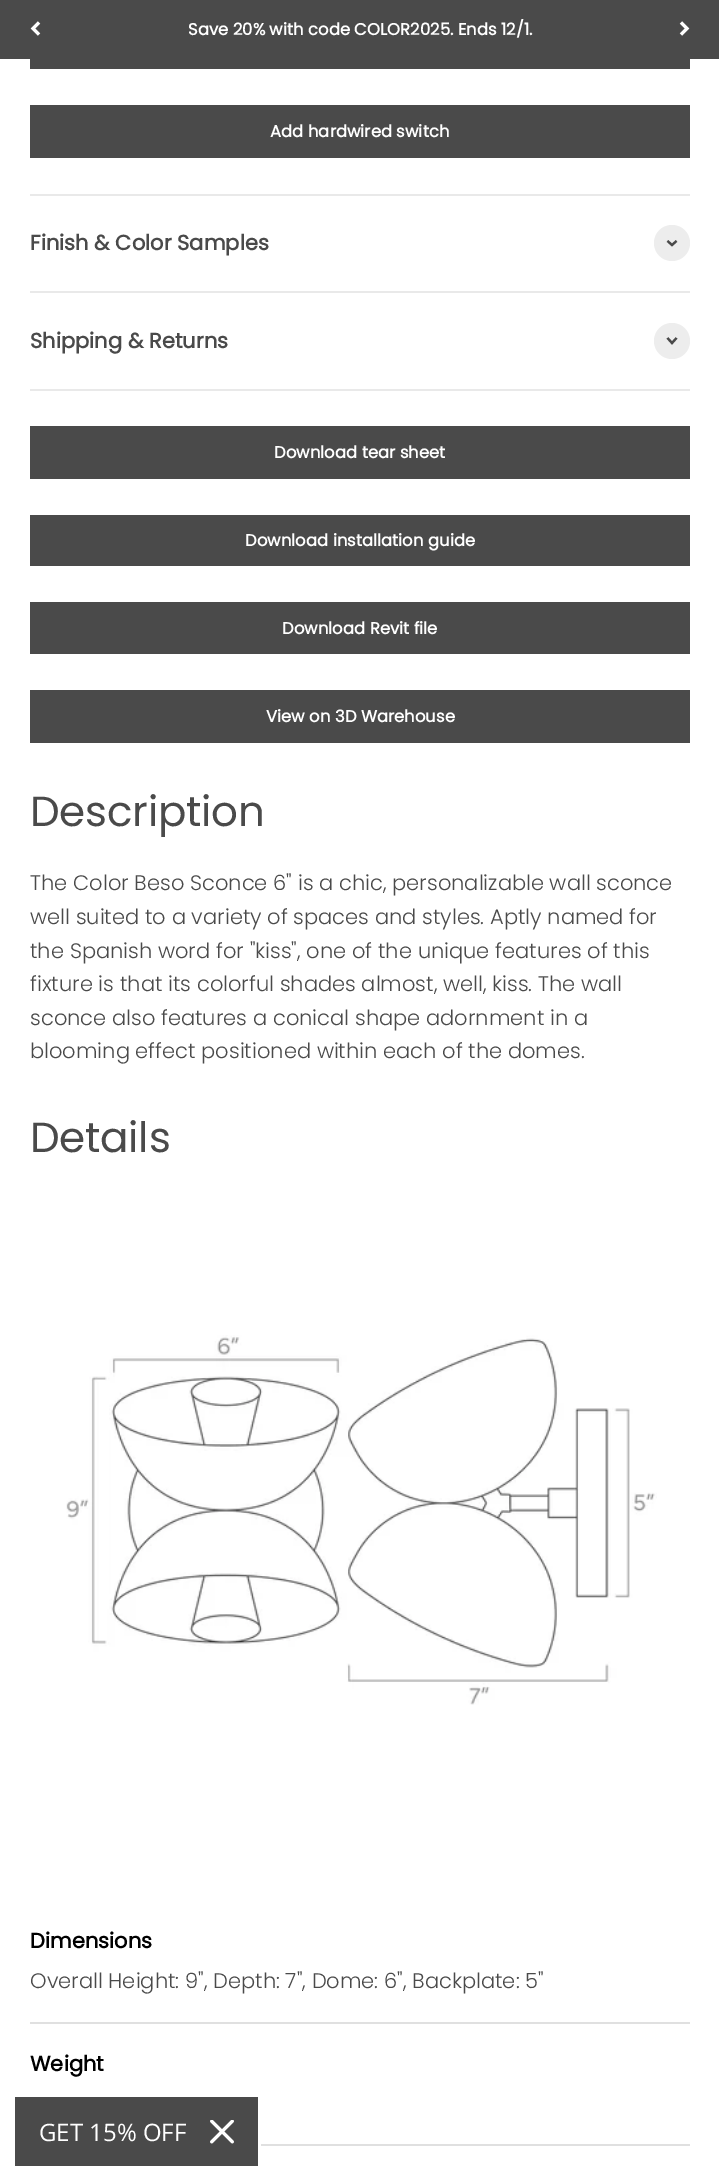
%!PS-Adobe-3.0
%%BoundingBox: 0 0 719 2180
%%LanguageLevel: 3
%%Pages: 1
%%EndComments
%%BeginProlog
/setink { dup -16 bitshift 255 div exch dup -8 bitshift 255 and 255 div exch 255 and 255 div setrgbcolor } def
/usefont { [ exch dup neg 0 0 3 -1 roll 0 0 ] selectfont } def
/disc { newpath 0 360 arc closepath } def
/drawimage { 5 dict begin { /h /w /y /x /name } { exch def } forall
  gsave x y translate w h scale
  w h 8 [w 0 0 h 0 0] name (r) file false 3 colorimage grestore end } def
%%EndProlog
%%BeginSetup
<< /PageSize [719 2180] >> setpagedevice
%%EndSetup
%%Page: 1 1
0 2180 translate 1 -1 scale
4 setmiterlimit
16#FFFFFF setink
0 0 719 2180 rectfill
16#4A4A4A setink
0 0 719 59 rectfill
16#FFFFFF setink
3 setlinewidth
39 22.5 moveto 33 28.5 lineto 39 34.5 lineto stroke
/Poppins-Bold 16.5 usefont
188 35 moveto (Save 20% with code COLOR2025. Ends 12/1.) show
681 34.5 moveto 687 28.5 lineto 681 22.5 lineto stroke
16#4A4A4A setink
30 59 660 10 rectfill
30 105 660 53 rectfill
16#FFFFFF setink
270 137 moveto (Add hardwired switch) show
16#E9E9E9 setink
30 194 660 2 rectfill
30 291 660 2 rectfill
/Poppins-Bold 21 usefont
16#4A4A4A setink
30 250 moveto (Finish & Color Samples) show
16#EDEDED setink
672 243 18 disc fill
16#4A4A4A setink
2.2 setlinewidth
667.5 241 moveto 672 245 lineto 676.5 241 lineto stroke
16#E9E9E9 setink
30 389 660 2 rectfill
16#4A4A4A setink
30 348 moveto (Shipping & Returns) show
16#EDEDED setink
672 341 18 disc fill
16#4A4A4A setink
667.5 338 moveto 672 343 lineto 676.5 338 lineto stroke
30 426 660 53 rectfill
/Poppins-Bold 16.5 usefont
16#FFFFFF setink
274 458 moveto (Download tear sheet) show
16#4A4A4A setink
30 515 660 51 rectfill
16#FFFFFF setink
245 546 moveto (Download installation guide) show
16#4A4A4A setink
30 602 660 52 rectfill
16#FFFFFF setink
282 634 moveto (Download Revit file) show
16#4A4A4A setink
30 690 660 53 rectfill
16#FFFFFF setink
266 722 moveto (View on 3D Warehouse) show
/Poppins-Regular 42 usefont
16#4A4A4A setink
30 826 moveto -0.25 0 (Description) ashow
/Poppins-Light 21 usefont
[
    [(The Color Beso Sconce 6" is a chic, personalizable wall sconce) 30 890]
    [(well suited to a variety of spaces and styles. Aptly named for) 30 924]
    [(the Spanish word for "kiss", one of the unique features of this) 30 958]
    [(fixture is that its colorful shades almost, well, kiss. The wall) 30 991]
    [(sconce also features a conical shape adornment in a) 30 1025]
    [(blooming effect positioned within each of the domes.) 30 1058]
] { aload pop moveto show } forall
/Poppins-Regular 42 usefont
30 1152 moveto -0.25 0 (Details) ashow
(img1.raw) 66 1335 591 370 drawimage
/Poppins-Bold 21 usefont
16#000000 setink
30 1948 moveto (Dimensions) show
/Poppins-Light 21 usefont
16#4A4A4A setink
30 1988 moveto (Overall Height: 9", Depth: 7", Dome: 6", Backplate: 5") show
16#E0E0E0 setink
30 2022 660 2 rectfill
/Poppins-Bold 21 usefont
16#000000 setink
30 2071 moveto (Weight) show
16#E0E0E0 setink
261 2144 429 2 rectfill
16#4A4A4A setink
15 2097 243 69 rectfill
/OpenSans-Regular 24 usefont
16#FFFFFF setink
39 2141 moveto (GET 15% OFF) show
(img2.raw) 210 2120 24 24 drawimage
showpage
%%EOF
